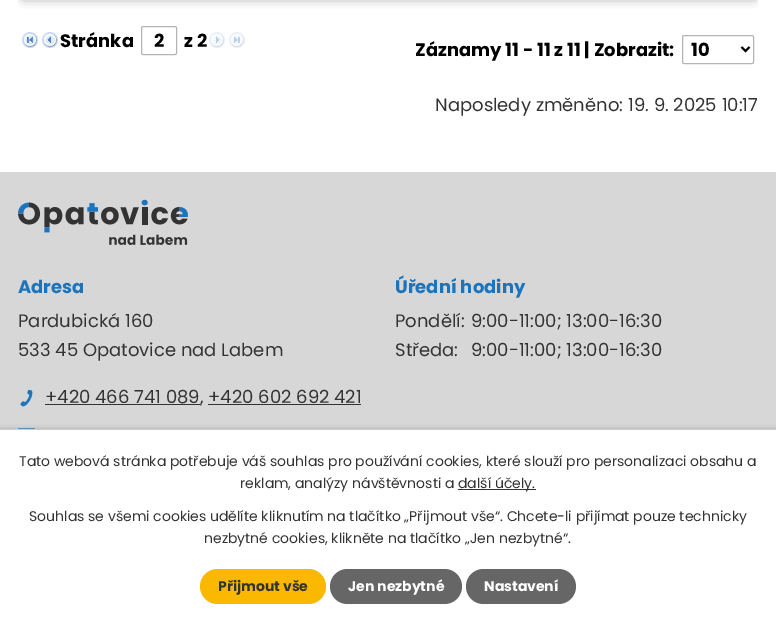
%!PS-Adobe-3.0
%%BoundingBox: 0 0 776 623
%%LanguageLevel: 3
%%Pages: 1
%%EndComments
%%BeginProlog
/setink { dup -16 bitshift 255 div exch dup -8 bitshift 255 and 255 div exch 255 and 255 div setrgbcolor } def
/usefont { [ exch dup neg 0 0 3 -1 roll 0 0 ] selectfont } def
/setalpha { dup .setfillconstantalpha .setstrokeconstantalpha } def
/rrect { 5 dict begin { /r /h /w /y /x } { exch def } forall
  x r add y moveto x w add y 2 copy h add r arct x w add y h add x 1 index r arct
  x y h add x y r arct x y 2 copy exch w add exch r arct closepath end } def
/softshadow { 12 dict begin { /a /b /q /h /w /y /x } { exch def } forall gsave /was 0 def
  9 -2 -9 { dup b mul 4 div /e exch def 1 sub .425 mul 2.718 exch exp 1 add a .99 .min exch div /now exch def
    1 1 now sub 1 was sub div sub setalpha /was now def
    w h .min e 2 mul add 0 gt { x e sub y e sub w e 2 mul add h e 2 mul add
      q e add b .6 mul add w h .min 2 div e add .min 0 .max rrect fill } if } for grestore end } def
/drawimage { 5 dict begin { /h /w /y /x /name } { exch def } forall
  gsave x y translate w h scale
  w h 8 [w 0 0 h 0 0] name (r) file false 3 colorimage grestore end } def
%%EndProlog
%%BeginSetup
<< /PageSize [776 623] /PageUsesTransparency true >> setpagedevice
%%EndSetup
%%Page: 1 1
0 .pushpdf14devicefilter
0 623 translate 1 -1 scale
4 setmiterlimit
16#FFFFFF setink
0 0 776 623 rectfill
gsave
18 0 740 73 rectclip
16#333333 setink
24 -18 730 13 0 6 1 softshadow
grestore
(img1.raw) 22 32 16 16 drawimage
(img2.raw) 42 32 16 16 drawimage
/Poppins-Bold 18 usefont
16#000000 setink
60 47 moveto (Stránka) show
16#B5B5B5 setink
141.5 26.5 35 28 1.5 rrect stroke
16#000000 setink
154 47 moveto (2) show
184 47 moveto (z 2) show
(img3.raw) 209 32 16 16 drawimage
(img4.raw) 229 32 16 16 drawimage
415 56 moveto (Záznamy 11 - 11 z 11 | Zobrazit:) show
16#B5B5B5 setink
682.5 35.5 71 28 1.5 rrect stroke
16#000000 setink
2 setlinewidth
741.5 47 moveto 745.5 51 lineto 749.5 47 lineto stroke
691 56 moveto (10) show
/Poppins-Regular 18 usefont
16#333333 setink
435 111 moveto (Naposledy změněno: 19. 9. 2025 10:17) show
16#D7D7D7 setink
0 172 776 257 rectfill
(img5.raw) 18 199 170 46 drawimage
/Poppins-Bold 18 usefont
16#1C75BC setink
18 293 moveto (Adresa) show
/Poppins-Regular 18 usefont
16#333333 setink
18 327 moveto (Pardubická 160) show
18 356 moveto (533 45 Opatovice nad Labem) show
(img6.raw) 20 390 13 17 drawimage
45 404 155 1 rectfill
45 403 moveto (+420 466 741 089, +420 602 692 421) show
208 404 153 1 rectfill
(img7.raw) 18 428 17 1 drawimage
/Poppins-Bold 18 usefont
16#1C75BC setink
395 293 moveto (Úřední hodiny) show
/Poppins-Regular 18 usefont
16#333333 setink
[
    [(Pondělí:) 395 327]
    [(9:00-11:00; 13:00-16:30) 471 327]
    [(Středa:) 395 356]
    [(9:00-11:00; 13:00-16:30) 471 356]
] { aload pop moveto show } forall
16#000000 setink
0 429 776 194 0 2.5 0.2 softshadow
16#FFFFFF setink
0 430 776 193 rectfill
16#CCCCCC setink
0 429 776 1 rectfill
/Poppins-Regular 14 usefont
16#333333 setink
19 466 moveto (Tato webová stránka potřebuje váš souhlas pro používání cookies, které slouží pro personalizaci obsahu a) show
240 488 moveto (reklam, analýzy návštěvnosti a) show
458 489 78 1 rectfill
[
    [(další účely.) 458 488]
    [(Souhlas se všemi cookies udělíte kliknutím na tlačítko „Přijmout vše“. Chcete-li přijímat pouze technicky) 29 521]
    [(nezbytné cookies, klikněte na tlačítko „Jen nezbytné“.) 204 543]
] { aload pop moveto show } forall
16#FBB800 setink
200 569 126 35 17.5 rrect fill
/Poppins-Bold 14 usefont
16#333333 setink
218 591 moveto (Přijmout vše) show
16#666666 setink
330 569 132 35 17.5 rrect fill
16#FFFFFF setink
348 591 moveto (Jen nezbytné) show
16#666666 setink
466 569 110 35 17.5 rrect fill
16#FFFFFF setink
484 591 moveto (Nastavení) show
.poppdf14devicefilter showpage
%%EOF
